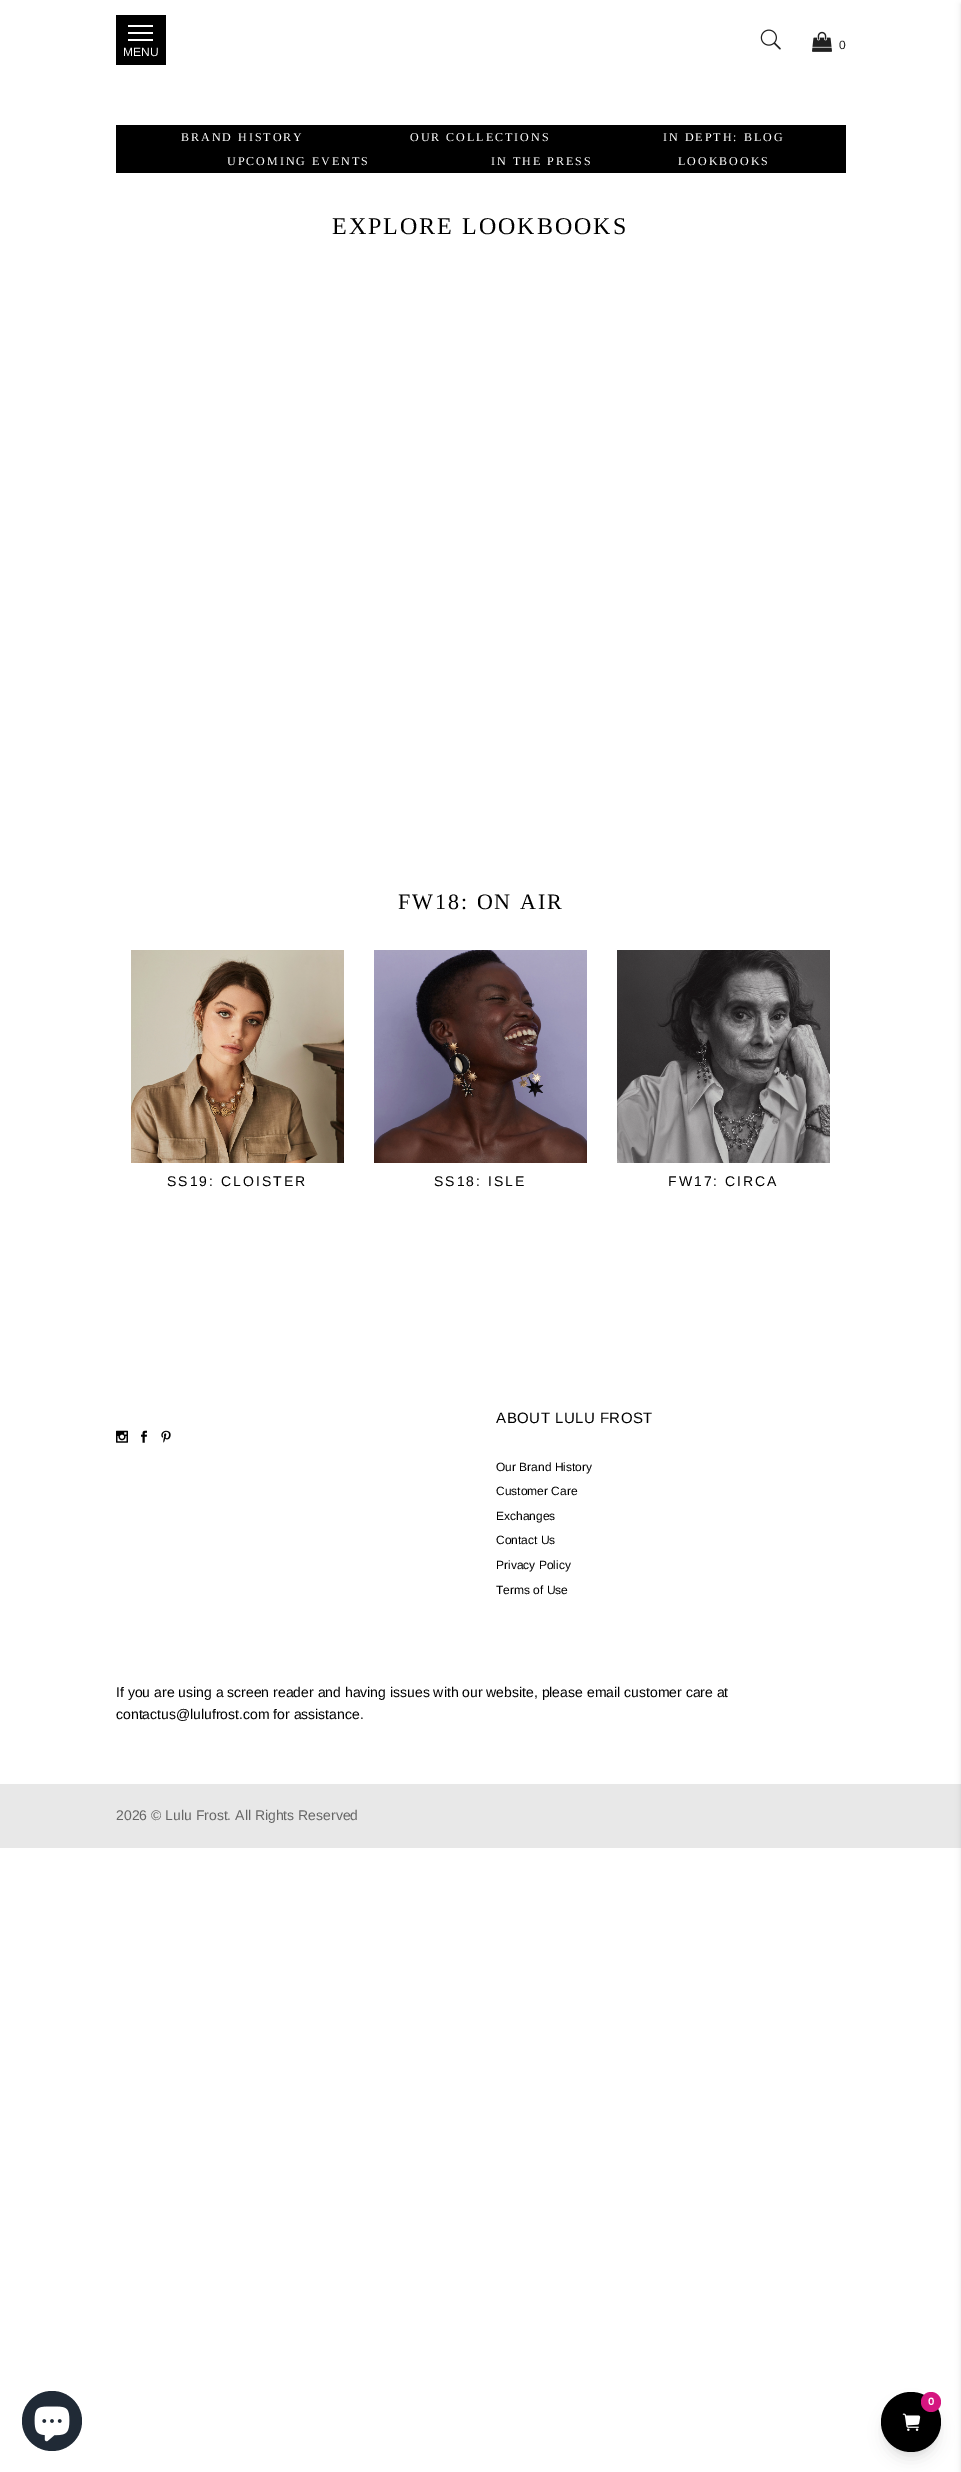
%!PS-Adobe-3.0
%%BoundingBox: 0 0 961 2472
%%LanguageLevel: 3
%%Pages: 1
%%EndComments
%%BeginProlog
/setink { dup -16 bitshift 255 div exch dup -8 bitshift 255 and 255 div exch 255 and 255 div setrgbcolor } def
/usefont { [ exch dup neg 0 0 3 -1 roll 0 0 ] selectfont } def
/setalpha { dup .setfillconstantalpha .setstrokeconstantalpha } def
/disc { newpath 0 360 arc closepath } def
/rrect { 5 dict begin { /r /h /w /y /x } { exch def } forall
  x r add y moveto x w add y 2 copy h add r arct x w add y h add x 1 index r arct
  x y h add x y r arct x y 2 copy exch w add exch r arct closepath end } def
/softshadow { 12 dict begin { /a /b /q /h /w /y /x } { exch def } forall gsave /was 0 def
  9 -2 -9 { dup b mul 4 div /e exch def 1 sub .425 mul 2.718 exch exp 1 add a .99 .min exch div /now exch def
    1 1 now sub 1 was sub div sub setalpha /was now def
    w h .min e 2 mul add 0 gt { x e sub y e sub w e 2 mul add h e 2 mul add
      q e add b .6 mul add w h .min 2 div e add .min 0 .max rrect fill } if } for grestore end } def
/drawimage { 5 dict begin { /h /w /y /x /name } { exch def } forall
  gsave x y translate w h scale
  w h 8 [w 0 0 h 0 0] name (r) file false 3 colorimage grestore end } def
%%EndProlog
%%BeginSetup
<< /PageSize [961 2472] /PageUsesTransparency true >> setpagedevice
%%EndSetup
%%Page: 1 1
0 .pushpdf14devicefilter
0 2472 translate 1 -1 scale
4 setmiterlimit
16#FFFFFF setink
0 0 961 2472 rectfill
(img1.raw) 760 29 21 21 drawimage
(img2.raw) 812 31 20 21 drawimage
/LiberationSans-Regular 12 usefont
16#202020 setink
839 49 moveto (0) show
[
    [116 15 50 50 16#000000]
    [128 25 25 2 16#FFFFFF]
    [128 32 25 2 16#FFFFFF]
    [128 39 25 2 16#FFFFFF]
] { aload pop setink rectfill } forall
123 56 moveto (MENU) show
16#000000 setink
116 125 730 48 rectfill
/LiberationSerif-Regular 12 usefont
16#FFFFFF setink
181 141 moveto 2 0 (BRAND HISTORY) ashow
410 141 moveto 2 0 (OUR COLLECTIONS) ashow
663 141 moveto 2 0 (IN DEPTH: BLOG) ashow
227 165 moveto 2 0 (UPCOMING EVENTS) ashow
491 165 moveto 2 0 (IN THE PRESS) ashow
678 165 moveto 2 0 (LOOKBOOKS) ashow
/LiberationSerif-Regular 24 usefont
16#000000 setink
332 234 moveto 2 0 (EXPLORE LOOKBOOKS) ashow
/LiberationSerif-Regular 22 usefont
398 909 moveto 2 0 (FW18: ON AIR) ashow
(img3.raw) 131 950 213 213 drawimage
/LiberationSans-Regular 14 usefont
167 1186 moveto 2 0 (SS19: CLOISTER) ashow
(img4.raw) 374 950 213 213 drawimage
434 1186 moveto 2 0 (SS18: ISLE) ashow
(img5.raw) 617 950 213 213 drawimage
668 1186 moveto 2 0 (FW17: CIRCA) ashow
(img6.raw) 116 1430 12 13 drawimage
(img7.raw) 141 1430 6 13 drawimage
(img8.raw) 161 1430 10 13 drawimage
/LiberationSans-Regular 15 usefont
496 1423 moveto 0.5 0 (ABOUT LULU FROST) ashow
/LiberationSans-Regular 12 usefont
[
    [(Our Brand History) 496 1471]
    [(Customer Care) 496 1495]
    [(Exchanges) 496 1520]
    [(Contact Us) 496 1544]
    [(Privacy Policy) 496 1569]
    [(Terms of Use) 496 1594]
] { aload pop moveto show } forall
/LiberationSans-Regular 14 usefont
116 1697 moveto (If you are using a screen reader and having issues with our website, please email customer care at) show
116 1719 moveto (contactus@lulufrost.com for assistance.) show
16#E8E8E8 setink
0 1784 961 64 rectfill
16#666666 setink
116 1820 moveto (2026 © Lulu Frost. All Rights Reserved) show
16#202A36 setink
52 2421 30 disc fill
(img9.raw) 34 2406 36 36 drawimage
16#000000 setink
883 2398 56 56 28 3 0.05 softshadow
884 2405 54 54 27 7.5 0.1 softshadow
911 2422 30 disc fill
16#D51680 setink
931 2402 10 disc fill
/Poppins-SemiBold 10 usefont
16#FFFFFF setink
928 2405 moveto (0) show
(img10.raw) 902 2413 19 18 drawimage
16#000000 setink
961 4 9 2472 0 3 0.1 softshadow
.poppdf14devicefilter showpage
%%EOF
